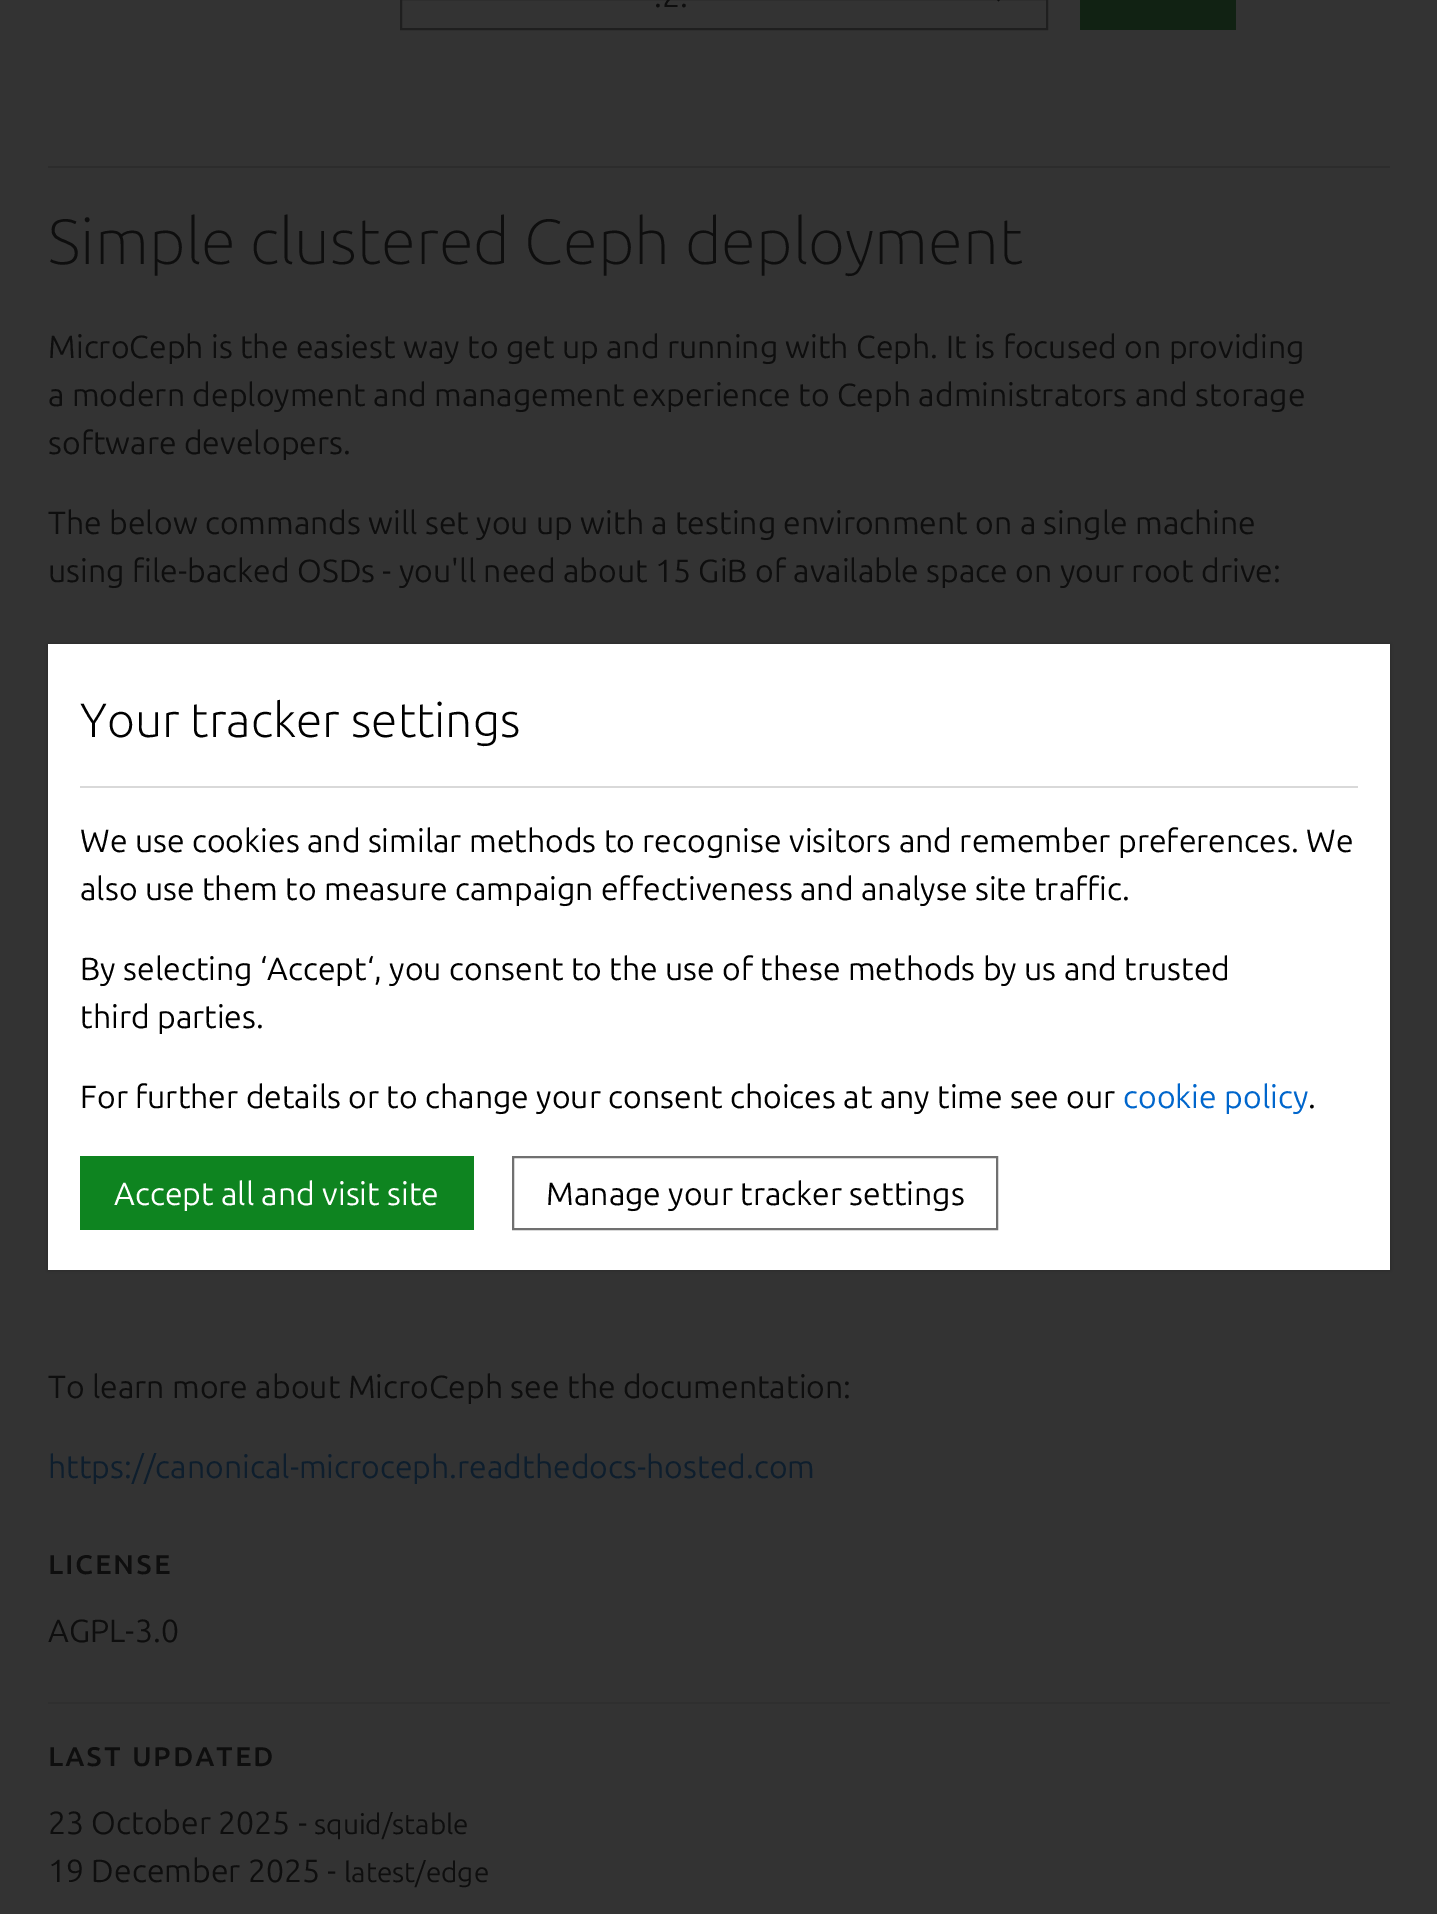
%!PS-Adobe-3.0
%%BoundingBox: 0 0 1437 1914
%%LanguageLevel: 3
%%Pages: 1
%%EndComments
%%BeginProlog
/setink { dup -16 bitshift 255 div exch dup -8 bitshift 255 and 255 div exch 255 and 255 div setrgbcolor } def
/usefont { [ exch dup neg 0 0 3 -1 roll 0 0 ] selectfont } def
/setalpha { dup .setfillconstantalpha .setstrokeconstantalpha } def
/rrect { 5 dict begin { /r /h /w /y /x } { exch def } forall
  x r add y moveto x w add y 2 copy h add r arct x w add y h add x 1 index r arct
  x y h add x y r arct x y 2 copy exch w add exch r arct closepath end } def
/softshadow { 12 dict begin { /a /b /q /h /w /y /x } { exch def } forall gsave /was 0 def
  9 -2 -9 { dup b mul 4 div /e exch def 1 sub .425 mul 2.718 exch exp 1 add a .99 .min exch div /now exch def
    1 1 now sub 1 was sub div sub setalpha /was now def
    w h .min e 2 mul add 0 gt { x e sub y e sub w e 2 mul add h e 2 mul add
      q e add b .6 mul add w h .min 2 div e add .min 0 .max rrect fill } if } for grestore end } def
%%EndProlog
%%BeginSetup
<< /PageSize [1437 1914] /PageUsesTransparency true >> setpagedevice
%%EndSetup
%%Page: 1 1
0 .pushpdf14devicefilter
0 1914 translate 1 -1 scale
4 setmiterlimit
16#333333 setink
0 0 1437 1914 rectfill
16#1F1F1F setink
2 setlinewidth
401 -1 646 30 rectstroke
/Ubuntu-Regular 32 usefont
16#0E0E0E setink
654 7 moveto (.2.) show
998.5 1.5 moveto 1010.5 -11 lineto 1008.5 -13 lineto 998.5 -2.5 lineto 988 -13 lineto 986 -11 lineto closepath fill
16#112213 setink
1080 0 156 30 rectfill
16#2C2C2C setink
48 166 1342 2 rectfill
/Ubuntu-ExtraLight 64 usefont
16#0E0E0E setink
48 264 moveto (Simple clustered Ceph deployment) show
/Ubuntu-Regular 32 usefont
[
    [(MicroCeph is the easiest way to get up and running with Ceph. It is focused on providing) 48 358]
    [(a modern deployment and management experience to Ceph administrators and storage) 48 406]
    [(software developers.) 48 454]
    [(The below commands will set you up with a testing environment on a single machine) 48 534]
    [(using file-backed OSDs - you'll need about 15 GiB of available space on your root drive:) 48 582]
    [(To learn more about MicroCeph see the documentation:) 48 1398]
] { aload pop moveto show } forall
16#0E1E2D setink
48 1478 moveto (https://canonical-microceph.readthedocs-hosted.com) show
/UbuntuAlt-Medium 32 usefont
16#0E0E0E setink
48 1574 moveto 1.6 0 (License) ashow
/Ubuntu-Regular 32 usefont
48 1642 moveto (AGPL-3.0) show
16#2F2F2F setink
48 1702 1342 2 rectfill
/UbuntuAlt-Medium 32 usefont
16#0E0E0E setink
48 1766 moveto 1.6 0 (Last updated) ashow
/Ubuntu-Regular 32 usefont
48 1834 moveto (23 October 2025 -) show
/Ubuntu-Regular 28 usefont
314 1834 moveto (squid/stable) show
/Ubuntu-Regular 32 usefont
48 1882 moveto (19 December 2025 -) show
/Ubuntu-Regular 28 usefont
344 1882 moveto (latest/edge) show
16#000000 setink
48 644 1342 626 0 3 0.2 softshadow
16#FFFFFF setink
48 644 1342 626 rectfill
/Ubuntu-Light 48 usefont
16#000000 setink
80 737 moveto (Your tracker settings) show
16#D9D9D9 setink
80 786 1278 2 rectfill
/Ubuntu-Regular 32 usefont
16#000000 setink
[
    [(We use cookies and similar methods to recognise visitors and remember preferences. We) 80 852]
    [(also use them to measure campaign effectiveness and analyse site traffic.) 80 900]
    [(By selecting ‘Accept‘, you consent to the use of these methods by us and trusted) 80 980]
    [(third parties.) 80 1028]
    [(For further details or to change your consent choices at any time see our) 80 1108]
] { aload pop moveto show } forall
16#0066CC setink
1123 1108 moveto (cookie policy) show
16#000000 setink
1308 1108 moveto (.) show
16#0E8420 setink
80 1156 394 74 rectfill
16#FFFFFF setink
114 1205 moveto (Accept all and visit site) show
16#707070 setink
513 1157 484 72 rectstroke
16#000000 setink
546 1205 moveto (Manage your tracker settings) show
.poppdf14devicefilter showpage
%%EOF
